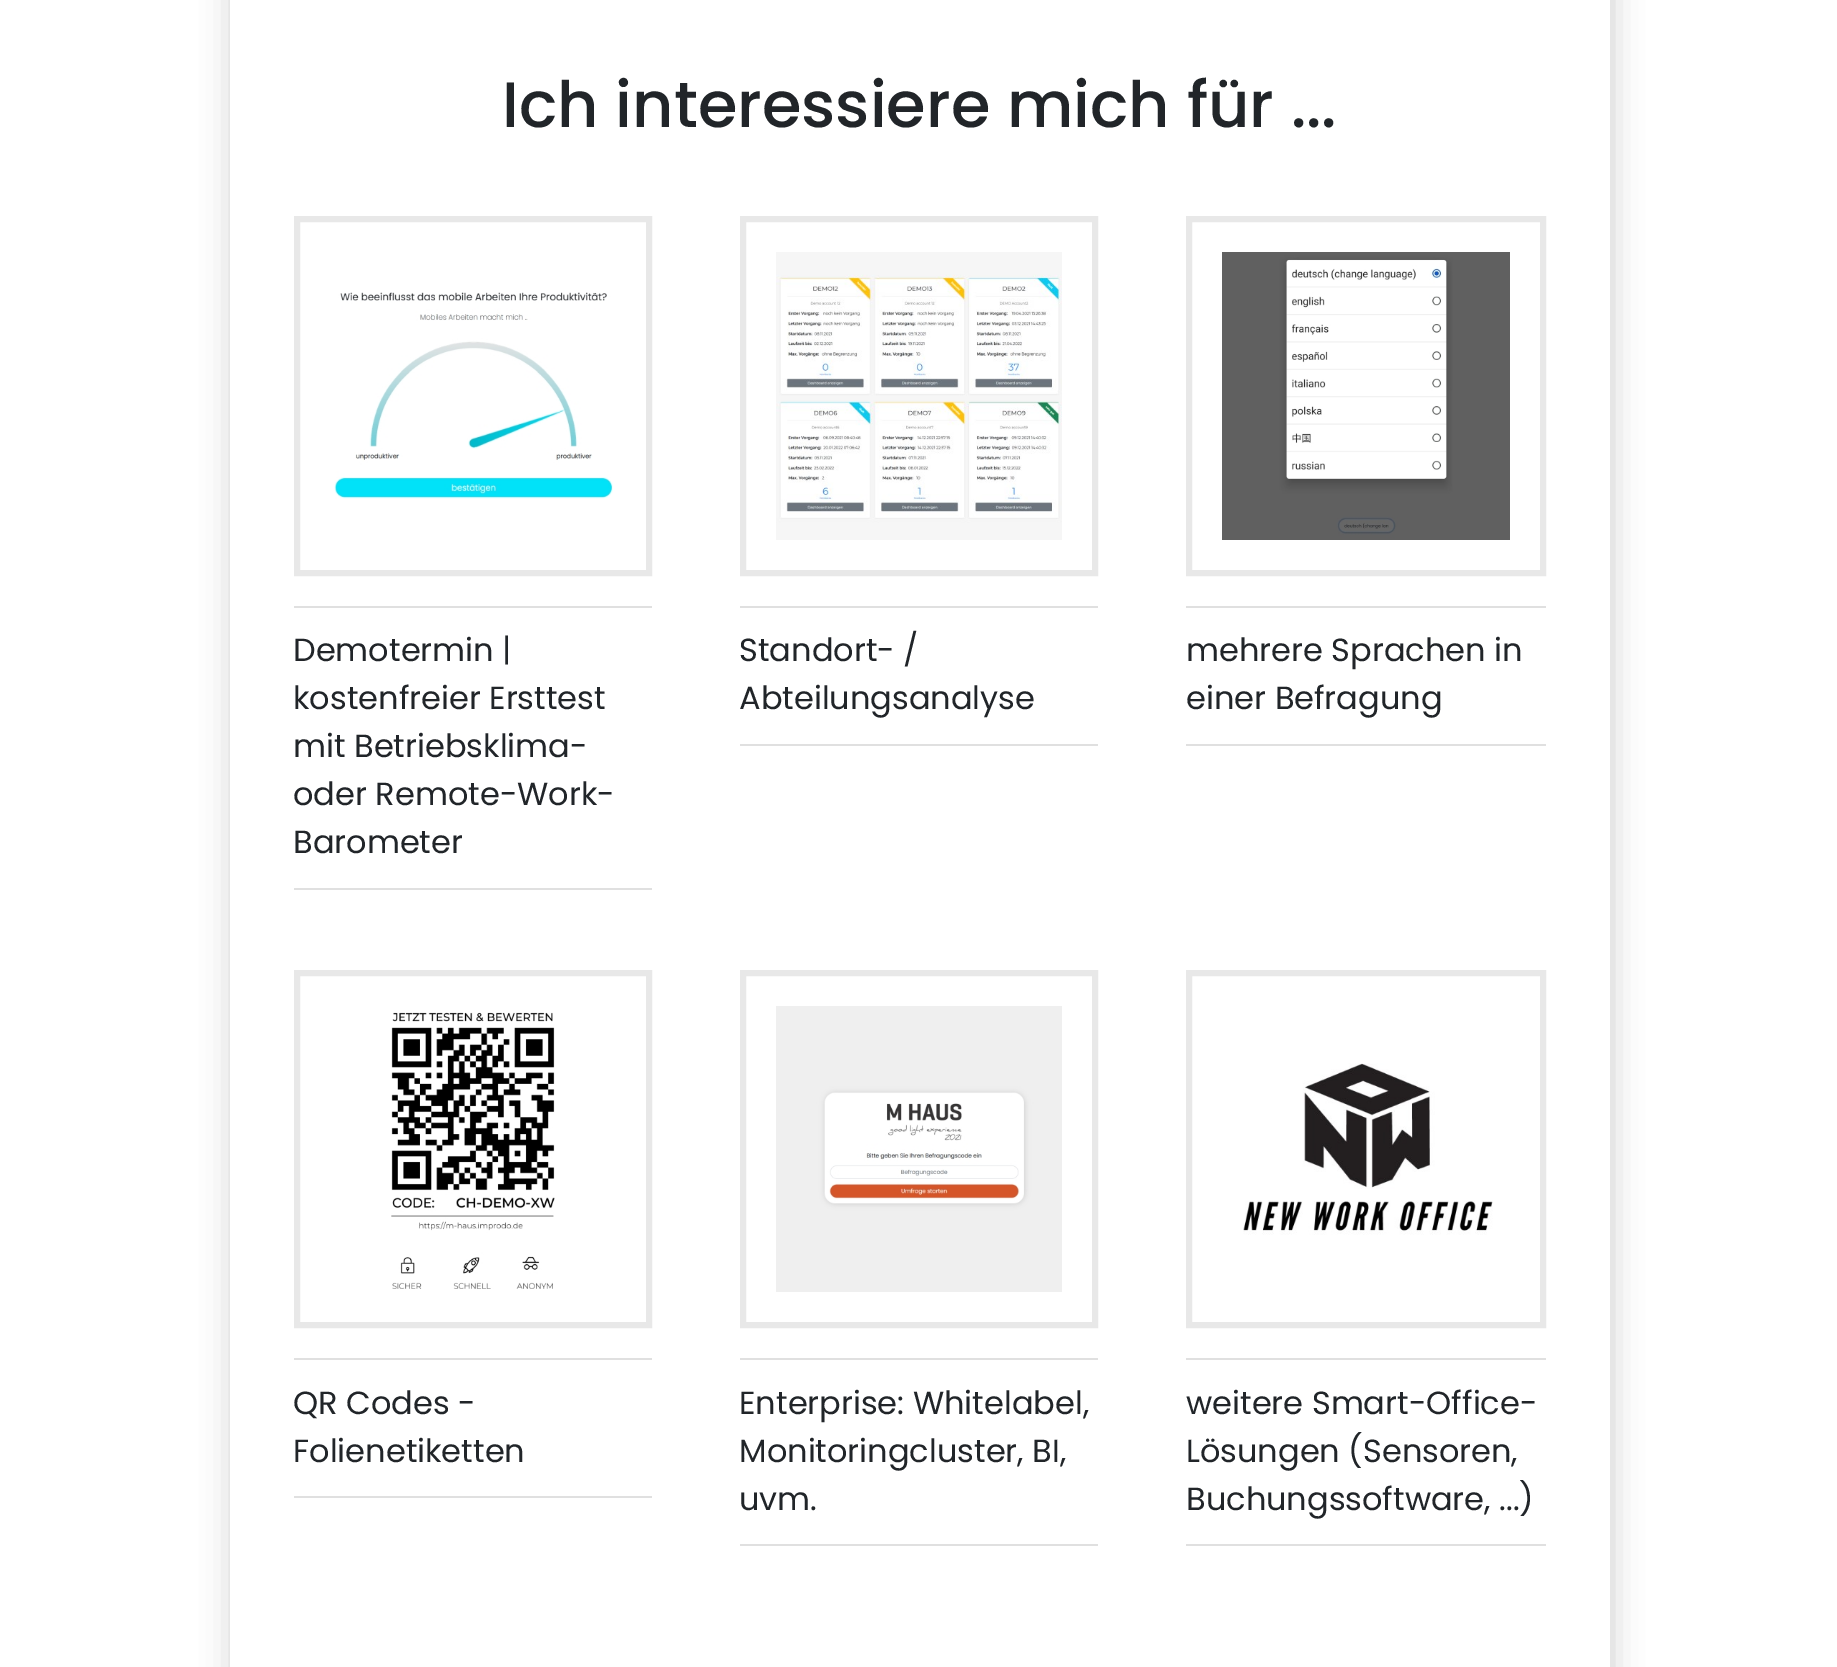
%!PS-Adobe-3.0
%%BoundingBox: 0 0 1837 1667
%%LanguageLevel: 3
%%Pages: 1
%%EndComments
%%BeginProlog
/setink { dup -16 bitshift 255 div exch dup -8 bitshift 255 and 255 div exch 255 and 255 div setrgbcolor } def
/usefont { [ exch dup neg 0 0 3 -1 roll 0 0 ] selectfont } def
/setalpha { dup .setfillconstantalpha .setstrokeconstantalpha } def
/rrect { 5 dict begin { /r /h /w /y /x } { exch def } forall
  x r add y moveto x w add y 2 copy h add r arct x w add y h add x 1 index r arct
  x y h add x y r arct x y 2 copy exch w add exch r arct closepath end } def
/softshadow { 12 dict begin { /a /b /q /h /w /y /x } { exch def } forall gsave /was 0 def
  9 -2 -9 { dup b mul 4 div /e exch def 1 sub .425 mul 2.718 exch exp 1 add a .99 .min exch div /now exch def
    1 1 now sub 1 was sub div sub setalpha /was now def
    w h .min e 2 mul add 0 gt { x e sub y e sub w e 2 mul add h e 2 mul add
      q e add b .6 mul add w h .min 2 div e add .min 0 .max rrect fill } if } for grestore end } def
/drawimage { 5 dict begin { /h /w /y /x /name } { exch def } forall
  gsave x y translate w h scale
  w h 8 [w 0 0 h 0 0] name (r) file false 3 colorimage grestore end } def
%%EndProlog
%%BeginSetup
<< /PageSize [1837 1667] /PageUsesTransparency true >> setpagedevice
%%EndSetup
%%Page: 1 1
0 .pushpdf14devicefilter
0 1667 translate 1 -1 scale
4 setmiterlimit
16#FFFFFF setink
0 0 1837 1667 rectfill
gsave
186 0 moveto 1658 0 lineto 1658 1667 lineto 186 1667 lineto closepath 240 -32 moveto 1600 -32 lineto 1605.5 -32 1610 -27.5 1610 -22 curveto 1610 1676 lineto 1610 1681.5 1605.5 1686 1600 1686 curveto 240 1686 lineto 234.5 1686 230 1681.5 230 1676 curveto 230 -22 lineto 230 -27.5 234.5 -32 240 -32 curveto closepath eoclip newpath
16#CCCCCC setink
232 -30 1380 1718 10 15 1 softshadow
grestore
/Poppins-Medium 64 usefont
16#212529 setink
502 127 moveto (Ich interessiere mich für ...) show
16#E8E8E8 setink
6 setlinewidth
297 219 352 354 rectstroke
(img1.raw) 334 292 279 207 drawimage
16#E0E0E0 setink
294 606 358 2 rectfill
294 888 358 2 rectfill
/Poppins-Regular 32 usefont
16#212529 setink
[
    [(Demotermin |) 293 661]
    [(kostenfreier Ersttest) 293 709]
    [(mit Betriebsklima-) 293 757]
    [(oder Remote-Work-) 293 805]
    [(Barometer) 293 853]
] { aload pop moveto show } forall
16#E8E8E8 setink
743 219 352 354 rectstroke
(img2.raw) 776 252 286 288 drawimage
16#E0E0E0 setink
740 606 358 2 rectfill
740 744 358 2 rectfill
16#212529 setink
739 661 moveto (Standort- /) show
739 709 moveto (Abteilungsanalyse) show
16#E8E8E8 setink
1189 219 354 354 rectstroke
(img3.raw) 1222 252 288 288 drawimage
16#E0E0E0 setink
1186 606 360 2 rectfill
1186 744 360 2 rectfill
16#212529 setink
1186 661 moveto (mehrere Sprachen in) show
1186 709 moveto (einer Befragung) show
16#E8E8E8 setink
297 973 352 352 rectstroke
(img4.raw) 391 1012 164 277 drawimage
16#E0E0E0 setink
294 1358 358 2 rectfill
294 1496 358 2 rectfill
16#212529 setink
293 1414 moveto (QR Codes -) show
293 1462 moveto (Folienetiketten) show
16#E8E8E8 setink
743 973 352 352 rectstroke
(img5.raw) 776 1006 286 286 drawimage
16#E0E0E0 setink
740 1358 358 2 rectfill
740 1544 358 2 rectfill
16#212529 setink
[
    [(Enterprise: Whitelabel,) 739 1414]
    [(Monitoringcluster, BI,) 739 1462]
    [(uvm.) 739 1510]
] { aload pop moveto show } forall
16#E8E8E8 setink
1189 973 354 352 rectstroke
(img6.raw) 1243 1063 250 172 drawimage
16#E0E0E0 setink
1186 1358 360 2 rectfill
1186 1544 360 2 rectfill
16#212529 setink
[
    [(weitere Smart-Office-) 1186 1414]
    [(Lösungen \(Sensoren,) 1186 1462]
    [(Buchungssoftware, ...\)) 1186 1510]
] { aload pop moveto show } forall
.poppdf14devicefilter showpage
%%EOF
